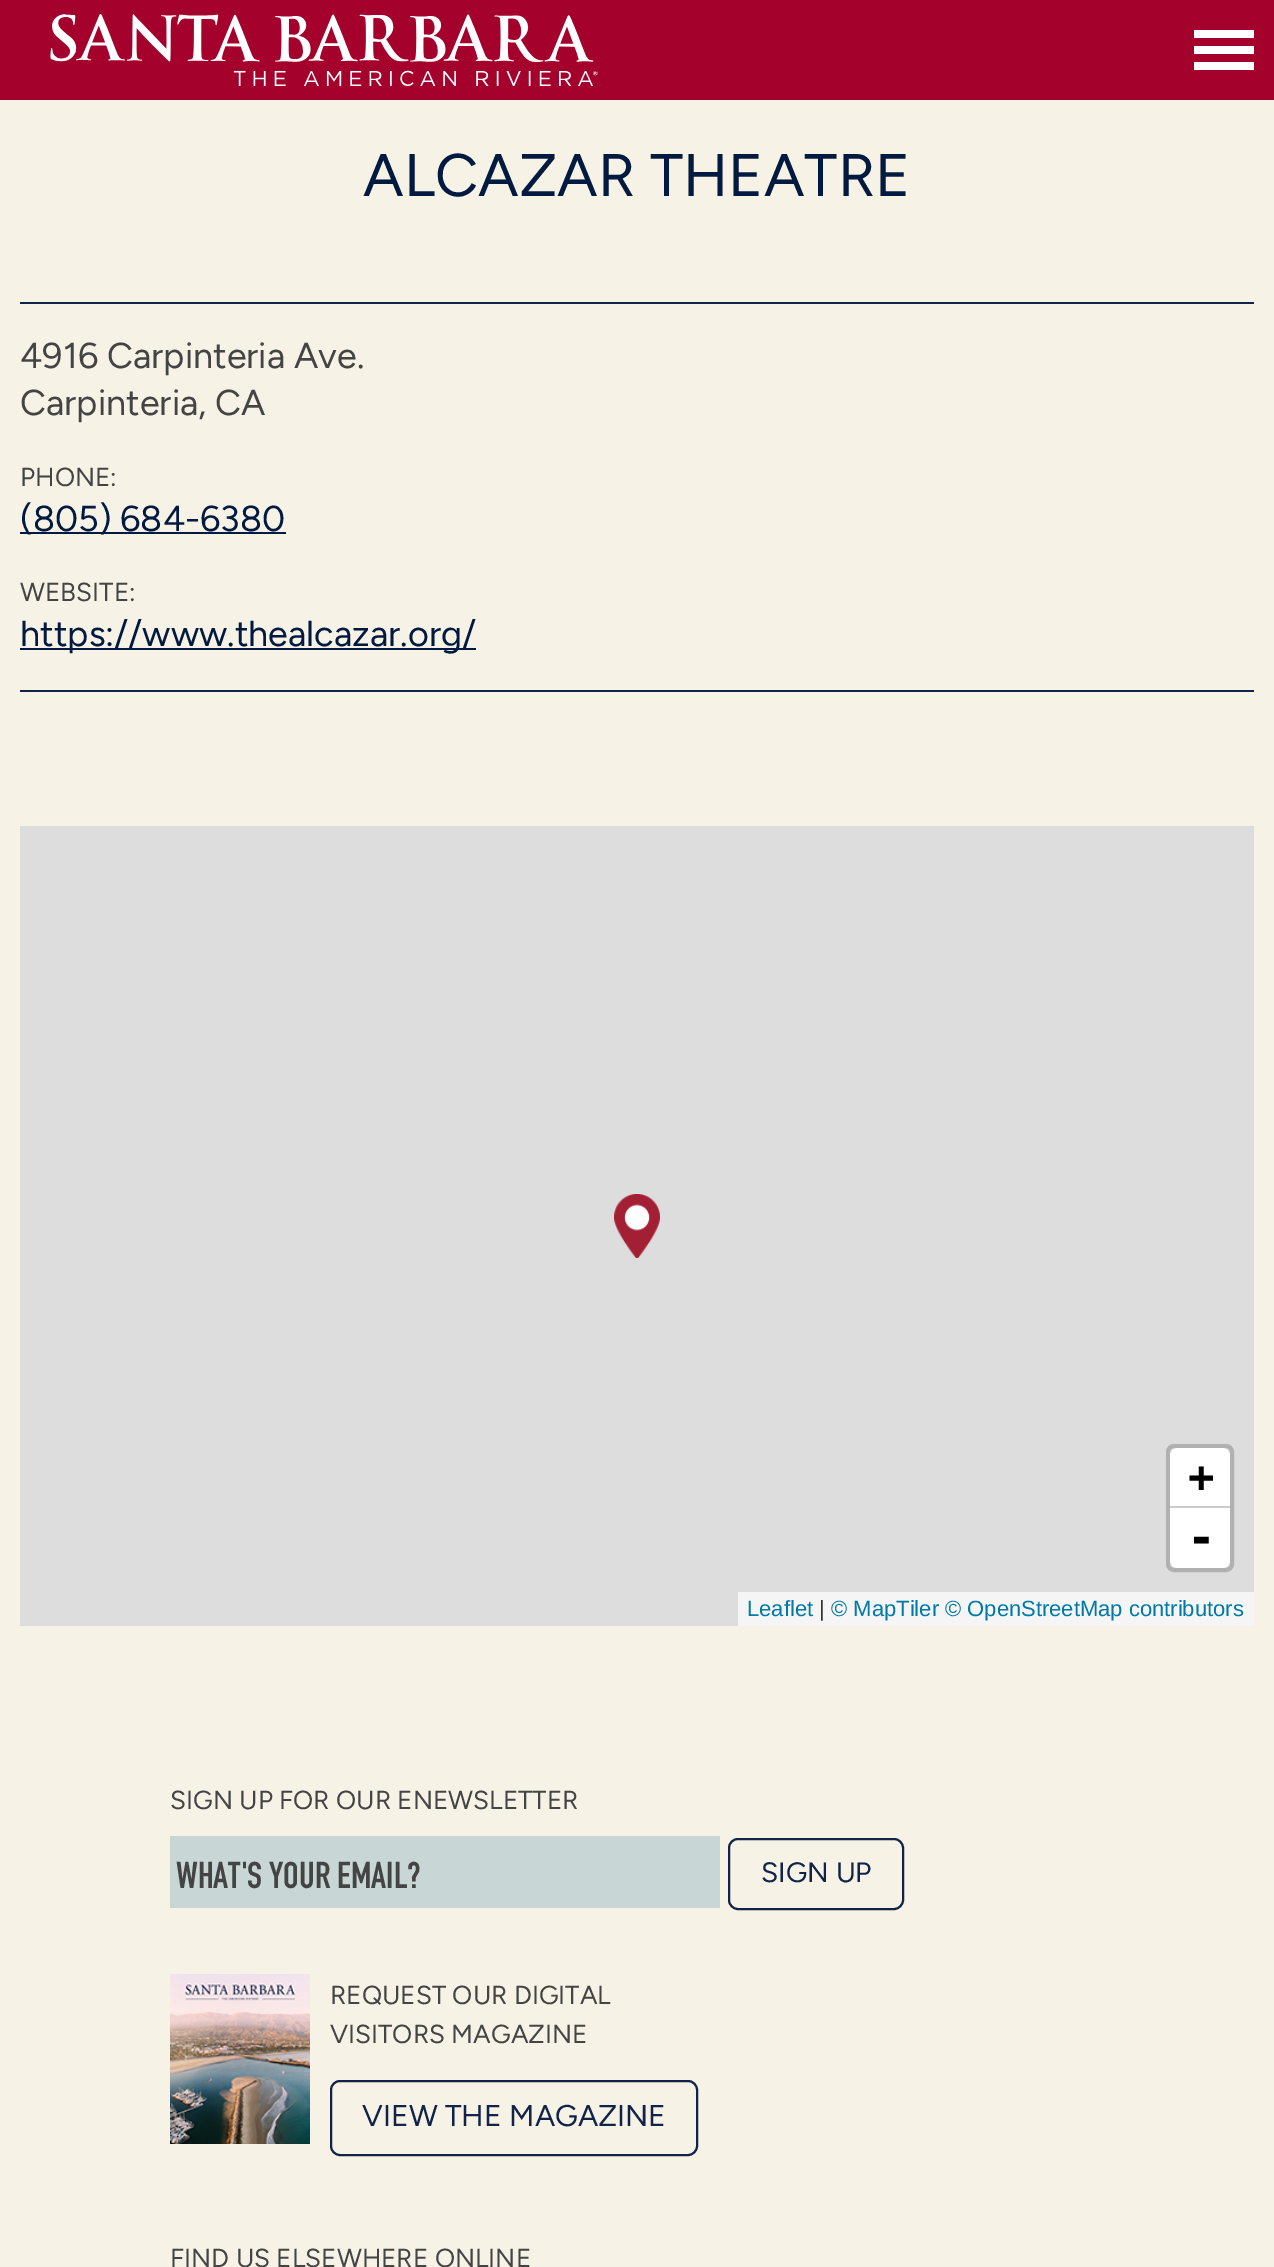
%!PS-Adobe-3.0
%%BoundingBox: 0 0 1274 2267
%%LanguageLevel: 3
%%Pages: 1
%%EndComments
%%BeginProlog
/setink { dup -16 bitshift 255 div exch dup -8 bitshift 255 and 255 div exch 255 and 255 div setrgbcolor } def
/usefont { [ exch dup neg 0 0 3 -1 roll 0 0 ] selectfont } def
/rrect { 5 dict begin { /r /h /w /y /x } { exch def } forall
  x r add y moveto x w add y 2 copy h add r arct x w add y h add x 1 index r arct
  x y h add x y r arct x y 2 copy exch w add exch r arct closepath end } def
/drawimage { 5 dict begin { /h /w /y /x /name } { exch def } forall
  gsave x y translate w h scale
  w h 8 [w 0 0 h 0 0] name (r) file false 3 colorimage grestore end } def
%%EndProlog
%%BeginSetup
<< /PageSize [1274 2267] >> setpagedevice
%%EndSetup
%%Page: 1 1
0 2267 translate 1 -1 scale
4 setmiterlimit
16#F6F3E6 setink
0 0 1274 2267 rectfill
16#A4022C setink
0 0 1274 100 rectfill
(img1.raw) 50 14 548 72 drawimage
[
    [1194 62 60 8 16#FFFFFF]
    [1194 46 60 8 16#FFFFFF]
    [1194 30 60 8 16#FFFFFF]
] { aload pop setink rectfill } forall
/Figtree-Regular 60 usefont
16#021A3F setink
363 196 moveto (ALCAZAR THEATRE) show
16#112348 setink
20 302 1234 2 rectfill
20 690 1234 2 rectfill
/Figtree-Regular 36 usefont
16#444444 setink
20 368 moveto (4916 Carpinteria Ave.) show
20 415 moveto (Carpinteria, CA) show
/Figtree-Regular 26 usefont
20 486 moveto (PHONE:) show
16#021A3F setink
20 532 266 2 rectfill
/Figtree-Regular 36 usefont
20 531 moveto (\(805\) 684-6380) show
/Figtree-Regular 26 usefont
16#444444 setink
20 601 moveto (WEBSITE:) show
16#021A3F setink
20 648 456 2 rectfill
/Figtree-Regular 36 usefont
20 646 moveto (https://www.thealcazar.org/) show
16#DDDDDD setink
20 826 1234 800 rectfill
(img2.raw) 614 1194 46 64 drawimage
16#B1B1B1 setink
4 setlinewidth
1168 1446 64 124 6 rrect stroke
16#FFFFFF setink
1178 1448 moveto 1222 1448 lineto 1226.5 1448 1230 1451.5 1230 1456 curveto 1230 1508 lineto 1170 1508 lineto 1170 1456 lineto 1170 1451.5 1173.5 1448 1178 1448 curveto closepath fill
16#CCCCCC setink
1170 1506 60 2 rectfill
/DejaVuSansMono-Bold 44 usefont
16#000000 setink
1188 1492 moveto (+) show
16#FFFFFF setink
1170 1508 moveto 1230 1508 lineto 1230 1560 lineto 1230 1564.5 1226.5 1568 1222 1568 curveto 1178 1568 lineto 1173.5 1568 1170 1564.5 1170 1560 curveto closepath fill
/DejaVuSansMono-Bold 48 usefont
16#000000 setink
1187 1554 moveto (-) show
16#F5F5F5 setink
738 1592 516 34 rectfill
/LiberationSans-Regular 22 usefont
16#0078A8 setink
747 1616 moveto (Leaflet) show
16#333333 setink
819 1616 moveto (|) show
16#0078A8 setink
831 1616 moveto (© MapTiler © OpenStreetMap contributors) show
/Figtree-Regular 26 usefont
16#444444 setink
170 1809 moveto (SIGN UP FOR OUR ENEWSLETTER) show
16#C9D6D6 setink
170 1836 550 72 rectfill
/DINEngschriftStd-Regular 36.75 usefont
16#444444 setink
176 1888 moveto (WHAT'S YOUR EMAIL?) show
16#112348 setink
2 setlinewidth
729 1839 174 70 9 rrect stroke
/Figtree-Regular 28 usefont
761 1882 moveto (SIGN UP) show
(img3.raw) 170 1974 140 170 drawimage
/Figtree-Regular 26 usefont
16#444444 setink
330 2004 moveto (REQUEST OUR DIGITAL) show
330 2043 moveto (VISITORS MAGAZINE) show
16#112348 setink
331 2081 366 74 9 rrect stroke
/Figtree-Regular 30 usefont
362 2126 moveto (VIEW THE MAGAZINE) show
/Figtree-Regular 26 usefont
16#444444 setink
170 2267 moveto (FIND US ELSEWHERE ONLINE) show
showpage
%%EOF
